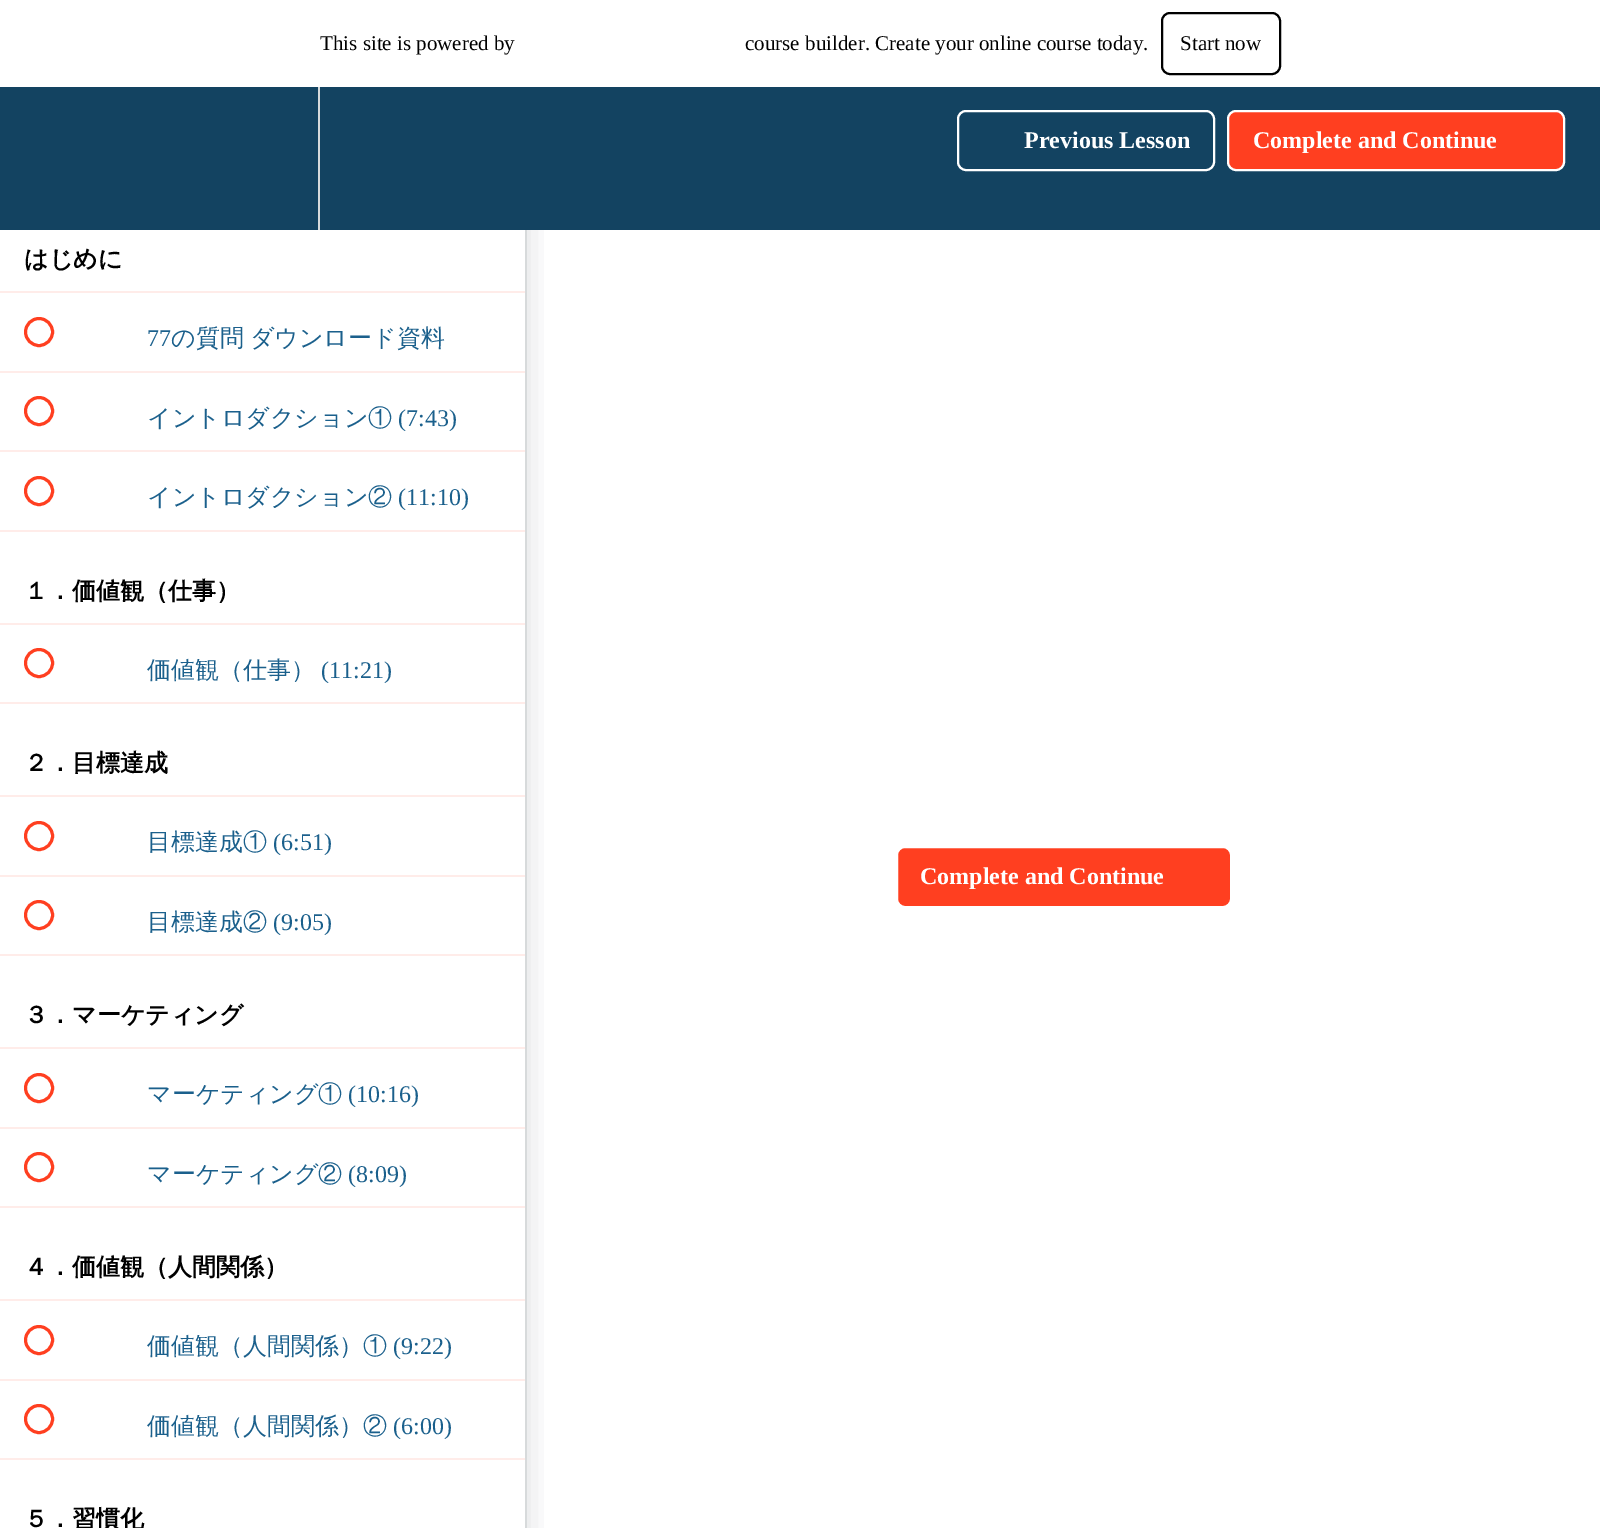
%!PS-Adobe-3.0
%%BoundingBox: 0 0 1600 1528
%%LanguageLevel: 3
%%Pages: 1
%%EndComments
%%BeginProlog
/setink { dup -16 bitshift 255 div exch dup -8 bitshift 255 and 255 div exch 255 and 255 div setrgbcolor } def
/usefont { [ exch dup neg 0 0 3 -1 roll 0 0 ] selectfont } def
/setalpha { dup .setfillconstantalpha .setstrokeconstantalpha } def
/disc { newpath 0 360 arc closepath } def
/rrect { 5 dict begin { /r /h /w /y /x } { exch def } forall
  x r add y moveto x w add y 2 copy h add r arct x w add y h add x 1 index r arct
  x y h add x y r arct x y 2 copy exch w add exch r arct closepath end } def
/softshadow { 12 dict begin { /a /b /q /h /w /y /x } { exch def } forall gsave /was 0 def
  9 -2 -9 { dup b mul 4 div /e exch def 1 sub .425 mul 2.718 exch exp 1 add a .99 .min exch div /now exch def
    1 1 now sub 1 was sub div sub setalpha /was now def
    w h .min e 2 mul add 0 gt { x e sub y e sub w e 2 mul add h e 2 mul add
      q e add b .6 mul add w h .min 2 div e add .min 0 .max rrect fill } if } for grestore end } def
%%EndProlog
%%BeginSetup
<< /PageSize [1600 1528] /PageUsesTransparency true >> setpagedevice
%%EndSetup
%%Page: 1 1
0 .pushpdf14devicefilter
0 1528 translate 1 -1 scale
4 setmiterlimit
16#FFFFFF setink
0 0 1600 1528 rectfill
gsave
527 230 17 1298 rectclip
16#20272D setink
0 150 527 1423 0 15 0.15 softshadow
grestore
16#134361 setink
0 87 1600 143 rectfill
/LiberationSerif-Regular 21 usefont
16#000000 setink
320 50 moveto (This site is powered by) show
745 50 moveto (course builder. Create your online course today.) show
2 setlinewidth
1162 13 118 61 8 rrect stroke
1180 50 moveto (Start now) show
16#D7DADB setink
318 87 2 143 rectfill
16#FFFFFF setink
958 111 256 59 8 rrect stroke
/LiberationSerif-Bold 24 usefont
1024 148 moveto (Previous Lesson) show
16#FF3F20 setink
1228 111 336 59 8 rrect gsave fill grestore
16#FFFFFF setink
stroke
1253 148 moveto (Complete and Continue) show
16#D7DADB setink
525 230 2 1298 rectfill
16#FFECE9 setink
0 291 525 2 rectfill
/WenQuanYiZenHei-Bold 24 usefont
16#000000 setink
24 267 moveto (はじめに) show
16#FFECE9 setink
0 371 525 2 rectfill
16#FF3F20 setink
3 setlinewidth
39 332 13.5 disc stroke
/LiberationSerif-Regular 24 usefont
16#1B608C setink
147 346 moveto (77) show
/WenQuanYiZenHei-Medium 24 usefont
171 346 moveto -1 0 32 (の質問 ダウンロード資料) widthshow
16#FFECE9 setink
0 450 525 2 rectfill
16#FF3F20 setink
39 411 13.5 disc stroke
16#1B608C setink
147 426 moveto (イントロダクション①) show
/LiberationSerif-Regular 24 usefont
398 426 moveto (\(7:43\)) show
16#FFECE9 setink
0 530 525 2 rectfill
16#FF3F20 setink
39 491 13.5 disc stroke
/WenQuanYiZenHei-Medium 24 usefont
16#1B608C setink
147 505 moveto (イントロダクション②) show
/LiberationSerif-Regular 24 usefont
398 505 moveto (\(11:10\)) show
16#FFECE9 setink
0 623 525 2 rectfill
/WenQuanYiZenHei-Bold 24 usefont
16#000000 setink
24 599 moveto (１．価値観（仕事）) show
16#FFECE9 setink
0 702 525 2 rectfill
16#FF3F20 setink
39 663 13.5 disc stroke
/WenQuanYiZenHei-Medium 24 usefont
16#1B608C setink
147 678 moveto (価値観（仕事）) show
/LiberationSerif-Regular 24 usefont
321 678 moveto (\(11:21\)) show
16#FFECE9 setink
0 795 525 2 rectfill
/WenQuanYiZenHei-Bold 24 usefont
16#000000 setink
24 771 moveto (２．目標達成) show
16#FFECE9 setink
0 875 525 2 rectfill
16#FF3F20 setink
39 836 13.5 disc stroke
/WenQuanYiZenHei-Medium 24 usefont
16#1B608C setink
147 850 moveto (目標達成①) show
/LiberationSerif-Regular 24 usefont
273 850 moveto (\(6:51\)) show
16#FFECE9 setink
0 954 525 2 rectfill
16#FF3F20 setink
39 915 13.5 disc stroke
/WenQuanYiZenHei-Medium 24 usefont
16#1B608C setink
147 930 moveto (目標達成②) show
/LiberationSerif-Regular 24 usefont
273 930 moveto (\(9:05\)) show
16#FFECE9 setink
0 1047 525 2 rectfill
/WenQuanYiZenHei-Bold 24 usefont
16#000000 setink
24 1023 moveto (３．マーケティング) show
16#FFECE9 setink
0 1127 525 2 rectfill
16#FF3F20 setink
39 1088 13.5 disc stroke
/WenQuanYiZenHei-Medium 24 usefont
16#1B608C setink
147 1102 moveto (マーケティング①) show
/LiberationSerif-Regular 24 usefont
348 1102 moveto (\(10:16\)) show
16#FFECE9 setink
0 1206 525 2 rectfill
16#FF3F20 setink
39 1167 13.5 disc stroke
/WenQuanYiZenHei-Medium 24 usefont
16#1B608C setink
147 1182 moveto (マーケティング②) show
/LiberationSerif-Regular 24 usefont
348 1182 moveto (\(8:09\)) show
16#FFECE9 setink
0 1299 525 2 rectfill
/WenQuanYiZenHei-Bold 24 usefont
16#000000 setink
24 1275 moveto (４．価値観（人間関係）) show
16#FFECE9 setink
0 1379 525 2 rectfill
16#FF3F20 setink
39 1340 13.5 disc stroke
/WenQuanYiZenHei-Medium 24 usefont
16#1B608C setink
147 1354 moveto (価値観（人間関係）①) show
/LiberationSerif-Regular 24 usefont
393 1354 moveto (\(9:22\)) show
16#FFECE9 setink
0 1458 525 2 rectfill
16#FF3F20 setink
39 1419 13.5 disc stroke
/WenQuanYiZenHei-Medium 24 usefont
16#1B608C setink
147 1434 moveto (価値観（人間関係）②) show
/LiberationSerif-Regular 24 usefont
393 1434 moveto (\(6:00\)) show
/WenQuanYiZenHei-Bold 24 usefont
16#000000 setink
24 1527 moveto (５．習慣化) show
16#FF3F20 setink
897 847 334 60 8 rrect gsave fill grestore
16#FFFFFF setink
2 setlinewidth
stroke
/LiberationSerif-Bold 24 usefont
920 884 moveto (Complete and Continue) show
.poppdf14devicefilter showpage
%%EOF
